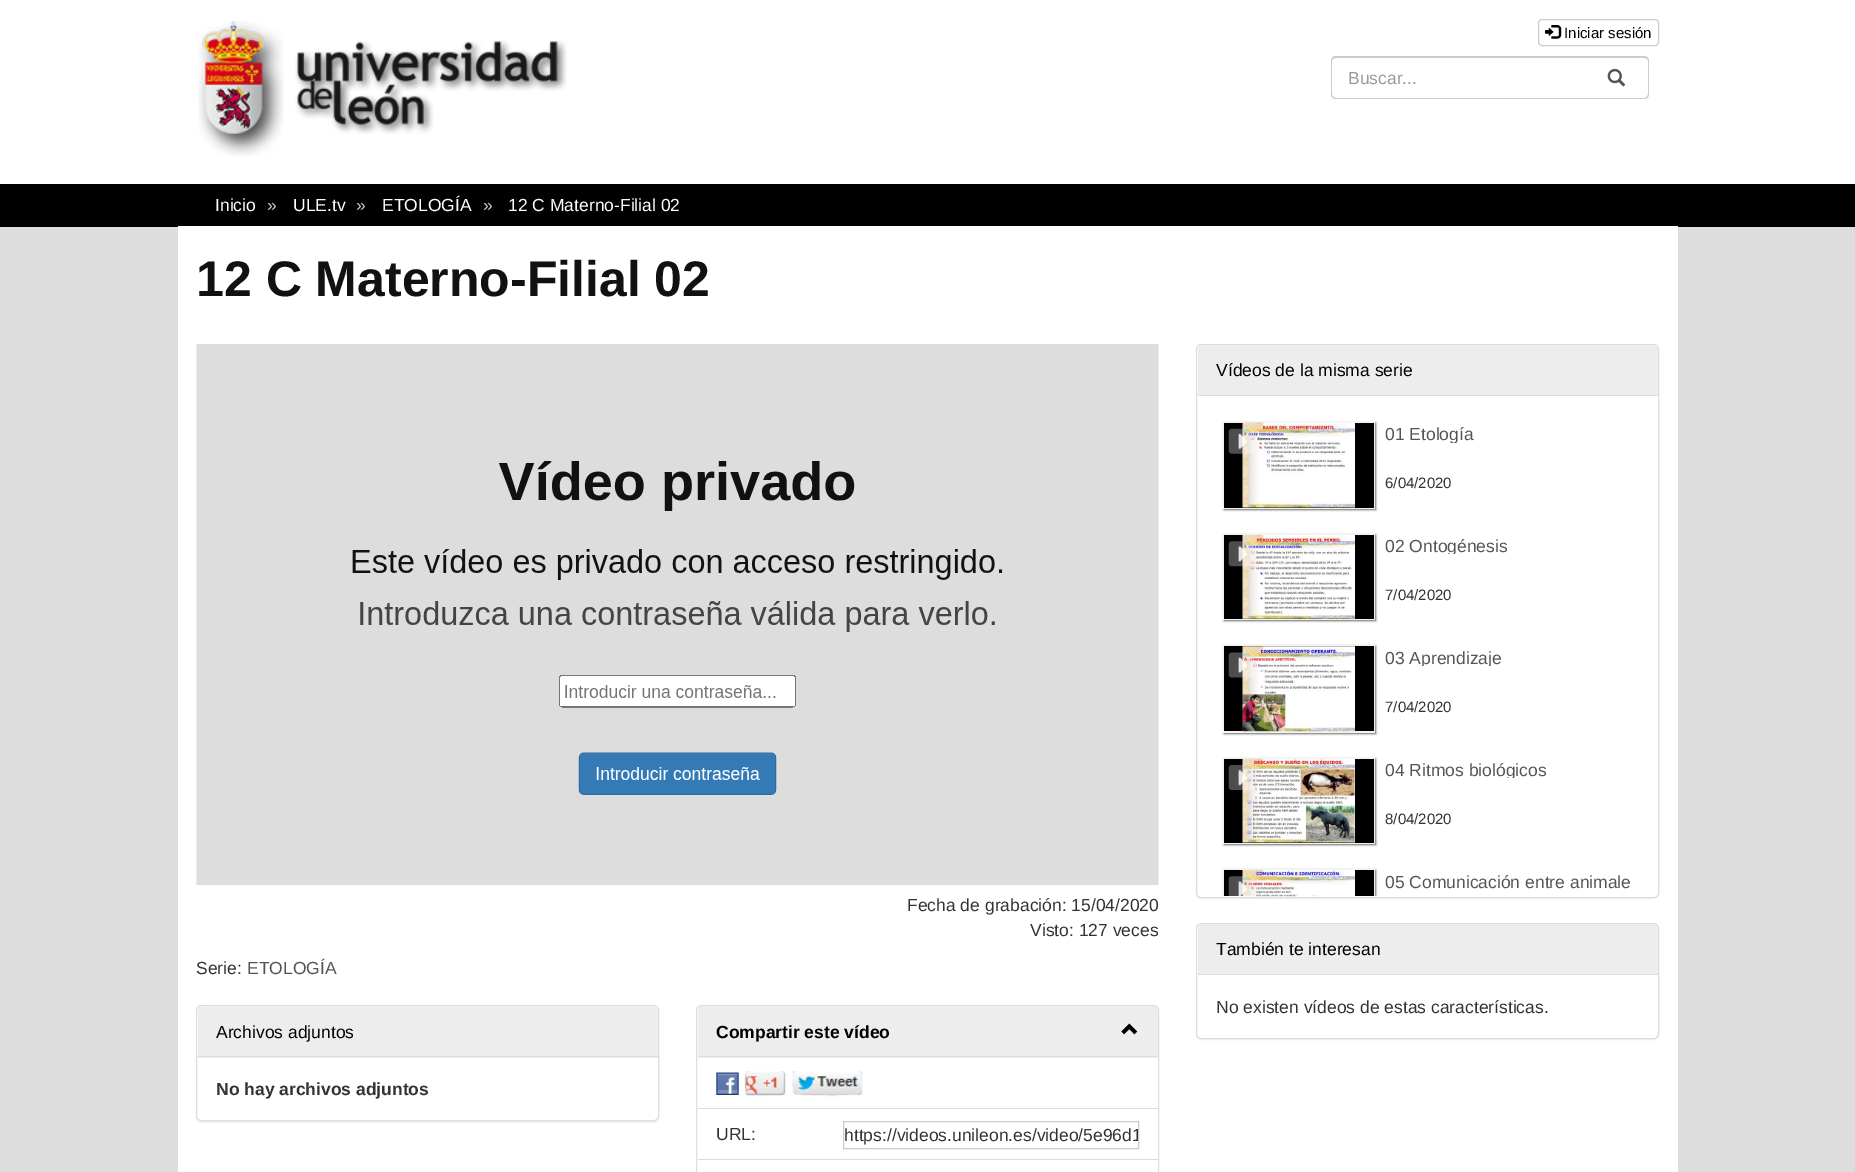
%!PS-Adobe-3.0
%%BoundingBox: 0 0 1855 1172
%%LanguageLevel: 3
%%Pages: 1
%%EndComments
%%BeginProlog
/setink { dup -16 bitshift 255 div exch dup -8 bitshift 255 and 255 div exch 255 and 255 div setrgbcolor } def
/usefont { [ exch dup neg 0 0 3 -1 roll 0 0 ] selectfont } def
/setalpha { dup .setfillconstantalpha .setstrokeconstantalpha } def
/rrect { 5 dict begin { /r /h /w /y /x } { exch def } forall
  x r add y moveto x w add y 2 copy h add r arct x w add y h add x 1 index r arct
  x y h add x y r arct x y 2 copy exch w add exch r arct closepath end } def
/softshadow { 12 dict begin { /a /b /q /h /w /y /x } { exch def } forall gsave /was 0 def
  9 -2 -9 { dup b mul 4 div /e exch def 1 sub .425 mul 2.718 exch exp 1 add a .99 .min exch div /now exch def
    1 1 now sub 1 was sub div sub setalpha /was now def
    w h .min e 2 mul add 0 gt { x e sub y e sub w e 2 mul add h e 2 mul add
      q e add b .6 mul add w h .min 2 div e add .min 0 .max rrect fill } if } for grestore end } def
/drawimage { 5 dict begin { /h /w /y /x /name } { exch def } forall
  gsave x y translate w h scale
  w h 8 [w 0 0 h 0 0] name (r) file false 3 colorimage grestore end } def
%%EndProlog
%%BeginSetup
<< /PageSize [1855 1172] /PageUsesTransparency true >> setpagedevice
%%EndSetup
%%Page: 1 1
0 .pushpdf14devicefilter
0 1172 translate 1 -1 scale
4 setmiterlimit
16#DDDDDD setink
0 0 1855 1172 rectfill
16#FFFFFF setink
0 0 1855 184 rectfill
(img1.raw) 198 21 86 135 drawimage
(img2.raw) 295 40 272 94 drawimage
16#CCCCCC setink
1538.5 19.5 120 26 3.5 rrect stroke
(img3.raw) 1545 25 17 14 drawimage
/LiberationSans-Regular 15 usefont
16#000000 setink
1564 38 moveto (Iniciar sesión) show
16#CCCCCC setink
1336 56 moveto 1585 56 lineto 1585 99 lineto 1336 99 lineto 1333 99 1331 97 1331 94 curveto 1331 61 lineto 1331 58 1333 56 1336 56 curveto closepath 1336 58 moveto 1585 58 lineto 1585 98 lineto 1336 98 lineto 1334 98 1332 96 1332 94 curveto 1332 61 lineto 1332 59 1334 58 1336 58 curveto closepath eofill
/LiberationSans-Regular 17.5 usefont
16#999999 setink
1348 84 moveto (Buscar...) show
16#CCCCCC setink
1585 56 moveto 1644 56 lineto 1647 56 1649 58 1649 61 curveto 1649 94 lineto 1649 97 1647 99 1644 99 curveto 1585 99 lineto closepath 1585 58 moveto 1644 58 lineto 1646 58 1648 59 1648 61 curveto 1648 94 lineto 1648 96 1646 98 1644 98 curveto 1585 98 lineto closepath eofill
(img4.raw) 1607 68 19 19 drawimage
16#000000 setink
0 184 1855 43 rectfill
16#FFFFFF setink
215 211 moveto (Inicio) show
16#CCCCCC setink
267 211 moveto (») show
16#FFFFFF setink
293 211 moveto (ULE.tv) show
16#CCCCCC setink
356 211 moveto (») show
16#FFFFFF setink
382 211 moveto (ETOLOGÍA) show
16#CCCCCC setink
483 211 moveto (») show
16#FFFFFF setink
508 211 moveto (12 C Materno-Filial 02) show
178 226 1500 946 rectfill
/LiberationSans-Bold 50 usefont
16#111111 setink
196 296 moveto (12 C Materno-Filial 02) show
(img5.raw) 196 344 963 541 drawimage
/LiberationSans-Regular 17.5 usefont
16#333333 setink
[
    [(Fecha de grabación: 15/04/2020) 907 911]
    [(Visto: 127 veces) 1030 936]
    [(Serie:) 196 974]
] { aload pop moveto show } forall
16#555555 setink
247 974 moveto (ETOLOGÍA) show
16#000000 setink
196 1006 463 117 5 0.5 0.05 softshadow
16#FFFFFF setink
196.5 1005.5 462 115 4.5 rrect gsave fill grestore
16#DDDDDD setink
stroke
16#EDEDED setink
202 1006 moveto 654 1006 lineto 656 1006 658 1008 658 1010 curveto 658 1058 lineto 198 1058 lineto 198 1010 lineto 198 1008 200 1006 202 1006 curveto closepath fill
16#DDDDDD setink
198 1056 460 1 rectfill
16#000000 setink
216 1038 moveto (Archivos adjuntos) show
/LiberationSans-Bold 17.5 usefont
16#333333 setink
216 1095 moveto (No hay archivos adjuntos) show
16#DDDDDD setink
696.5 1005.5 462 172 4.5 rrect stroke
16#EDEDED setink
702 1006 moveto 1154 1006 lineto 1156 1006 1158 1008 1158 1010 curveto 1158 1058 lineto 698 1058 lineto 698 1010 lineto 698 1008 700 1006 702 1006 curveto closepath fill
16#DDDDDD setink
698 1056 460 1 rectfill
16#000000 setink
716 1038 moveto (Compartir este vídeo) show
(img6.raw) 1121 1023 17 12 drawimage
16#DDDDDD setink
698 1108 460 1 rectfill
(img7.raw) 716 1072 23 23 drawimage
(img8.raw) 744 1071 43 26 drawimage
(img9.raw) 792 1071 71 26 drawimage
/LiberationSans-Regular 17.5 usefont
16#333333 setink
716 1140 moveto (URL:) show
16#CCCCCC setink
843.5 1121.5 295 27 rectstroke
gsave
844 1123 294 25 rectclip
16#333333 setink
844 1141 moveto (https://videos.unileon.es/video/5e96d1) show
grestore
16#DDDDDD setink
698 1159 460 1 rectfill
16#000000 setink
1196 345 463 554 5 0.5 0.05 softshadow
16#FFFFFF setink
1196.5 344.5 462 553 4.5 rrect gsave fill grestore
16#DDDDDD setink
stroke
16#EDEDED setink
1202 345 moveto 1654 345 lineto 1656 345 1658 347 1658 349 curveto 1658 396 lineto 1198 396 lineto 1198 349 lineto 1198 347 1200 345 1202 345 curveto closepath fill
16#DDDDDD setink
1198 395 460 1 rectfill
16#000000 setink
1216 376 moveto (Vídeos de la misma serie) show
16#666666 setink
1224 423 152 87 0 1 1 softshadow
16#F3F3F3 setink
1223 421 152 88 rectfill
16#000000 setink
1224 423 150 85 rectfill
(img10.raw) 1242 422 113 86 drawimage
(img11.raw) 1228 428 26 26 drawimage
gsave
1385 421 248 22 rectclip
16#555555 setink
1385 440 moveto (01 Etología) show
grestore
/LiberationSans-Regular 15 usefont
16#333333 setink
1385 488 moveto (6/04/2020) show
16#666666 setink
1224 535 152 86 0 1 1 softshadow
16#F3F3F3 setink
1223 534 152 86 rectfill
16#000000 setink
1224 535 150 84 rectfill
(img13.raw) 1242 535 113 84 drawimage
(img12.raw) 1228 541 26 26 drawimage
gsave
1385 534 248 20 rectclip
/LiberationSans-Regular 17.5 usefont
16#555555 setink
1385 552 moveto (02 Ontogénesis) show
grestore
16#333333 setink
1385 600 moveto (7/04/2020) show
16#666666 setink
1224 646 152 88 0 1 1 softshadow
16#F3F3F3 setink
1223 645 152 88 rectfill
16#000000 setink
1224 646 150 85 rectfill
(img15.raw) 1242 646 113 86 drawimage
(img14.raw) 1228 652 26 26 drawimage
gsave
1385 645 248 21 rectclip
/LiberationSans-Regular 17.5 usefont
16#555555 setink
1385 664 moveto (03 Aprendizaje) show
grestore
16#333333 setink
1385 712 moveto (7/04/2020) show
16#666666 setink
1224 759 152 86 0 1 1 softshadow
16#F3F3F3 setink
1223 758 152 86 rectfill
16#000000 setink
1224 759 150 84 rectfill
(img16.raw) 1242 758 113 85 drawimage
(img17.raw) 1228 765 26 25 drawimage
gsave
1385 758 248 20 rectclip
/LiberationSans-Regular 17.5 usefont
16#555555 setink
1385 776 moveto (04 Ritmos biológicos) show
grestore
16#333333 setink
1385 824 moveto (8/04/2020) show
16#000000 setink
1196 924 463 116 5 0.5 0.05 softshadow
16#FFFFFF setink
1196.5 923.5 462 115 4.5 rrect gsave fill grestore
16#DDDDDD setink
stroke
16#EDEDED setink
1202 924 moveto 1654 924 lineto 1656 924 1658 926 1658 928 curveto 1658 975 lineto 1198 975 lineto 1198 928 lineto 1198 926 1200 924 1202 924 curveto closepath fill
gsave
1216 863 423 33 rectclip
16#666666 setink
1224 870 152 88 0 1 1 softshadow
grestore
16#F3F3F3 setink
1223 869 152 27 rectfill
16#000000 setink
1224 870 150 26 rectfill
(img19.raw) 1242 870 113 27 drawimage
(img18.raw) 1228 876 26 20 drawimage
/LiberationSans-Regular 17.5 usefont
16#555555 setink
1385 888 moveto (05 Comunicación entre animale) show
16#DDDDDD setink
1198 974 460 1 rectfill
16#000000 setink
1216 955 moveto (También te interesan) show
16#333333 setink
1216 1013 moveto (No existen vídeos de estas características.) show
.poppdf14devicefilter showpage
%%EOF
